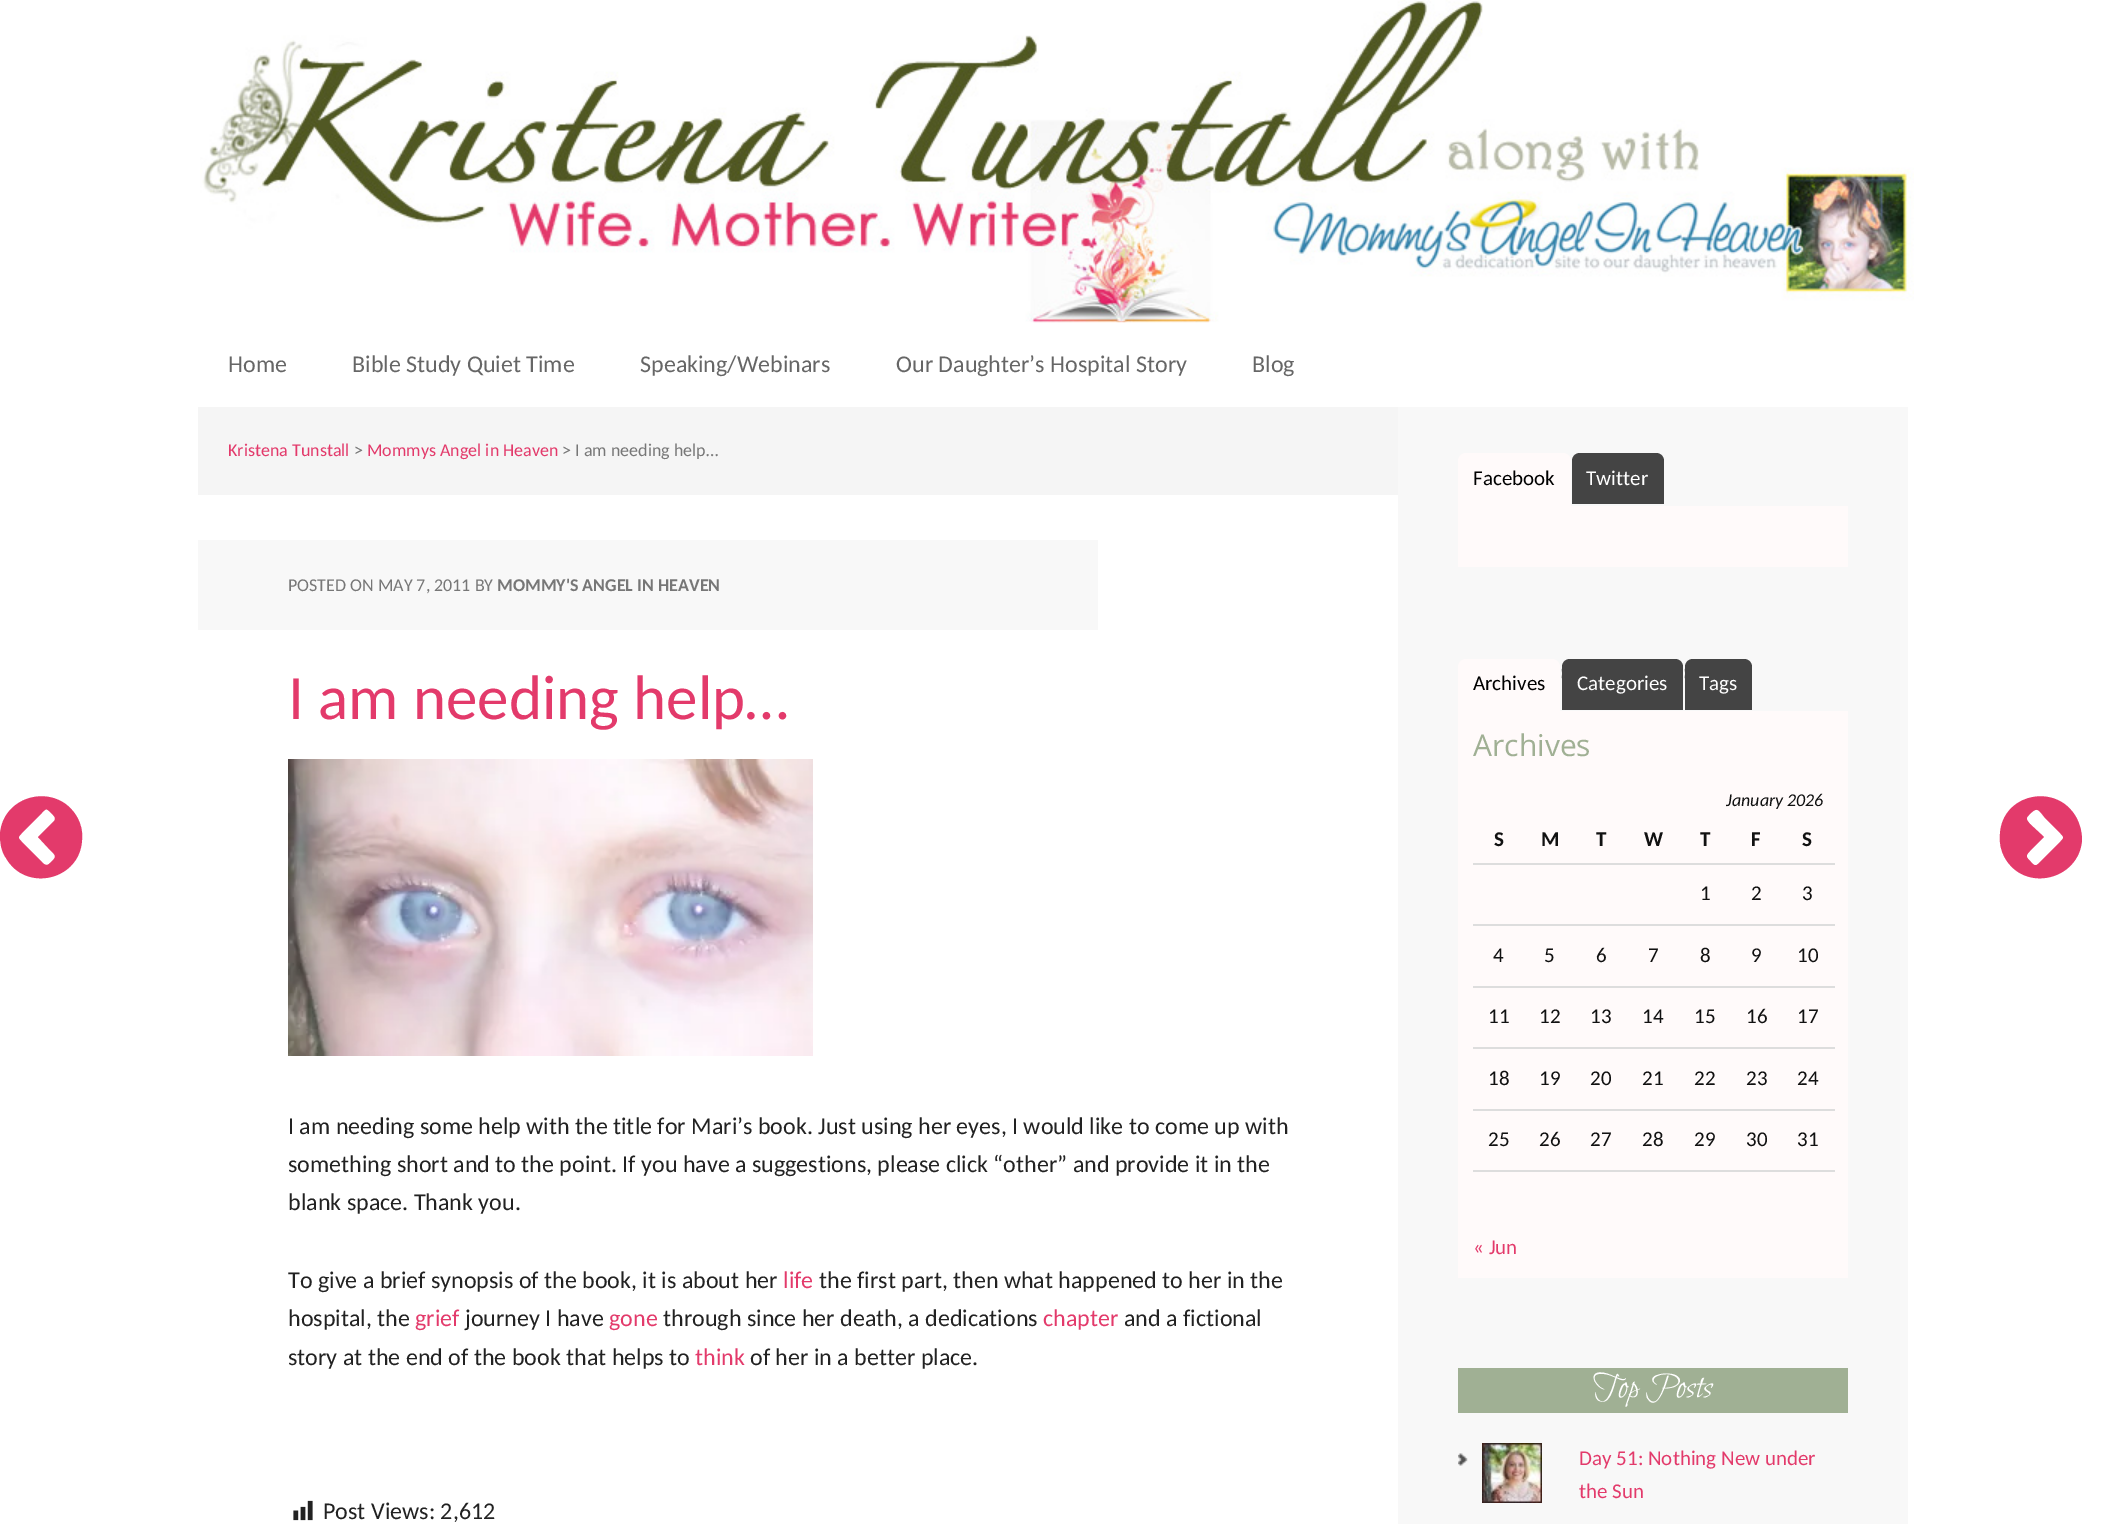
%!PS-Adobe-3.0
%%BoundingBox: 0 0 2105 1524
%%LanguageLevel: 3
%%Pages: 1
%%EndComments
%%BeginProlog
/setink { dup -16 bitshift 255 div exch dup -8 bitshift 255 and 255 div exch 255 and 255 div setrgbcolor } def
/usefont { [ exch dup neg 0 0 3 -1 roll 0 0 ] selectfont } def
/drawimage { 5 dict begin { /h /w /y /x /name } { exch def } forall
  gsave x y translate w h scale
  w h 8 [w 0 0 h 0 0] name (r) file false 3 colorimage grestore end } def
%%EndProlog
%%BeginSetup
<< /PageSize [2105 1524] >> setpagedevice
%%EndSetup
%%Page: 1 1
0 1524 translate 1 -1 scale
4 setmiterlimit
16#FFFFFF setink
0 0 2105 1524 rectfill
(img1.raw) 200 0 1714 323 drawimage
/Carlito-Regular 24 usefont
16#666666 setink
[
    [(Home) 228 372]
    [(Bible Study Quiet Time) 352 372]
    [(Speaking/Webinars) 640 372]
    [(Our Daughter’s Hospital Story) 896 372]
    [(Blog) 1252 372]
] { aload pop moveto show } forall
16#F5F5F5 setink
198 407 1200 88 rectfill
/Carlito-Regular 18 usefont
16#E33A6B setink
228 456 moveto (Kristena Tunstall) show
16#777777 setink
354 456 moveto (>) show
16#E33A6B setink
367 456 moveto (Mommys Angel in Heaven) show
16#777777 setink
562 456 moveto (> I am needing help…) show
16#F8F8F8 setink
198 540 900 90 rectfill
16#777777 setink
288 591 moveto (POSTED ON MAY 7, 2011 BY) show
/Carlito-Bold 18 usefont
497 591 moveto (MOMMY'S ANGEL IN HEAVEN) show
/Carlito-Regular 63 usefont
16#E33A6B setink
288 719 moveto (I am needing help…) show
49 864 moveto 55 858 58 857 51 851 curveto 38 837 lineto 54 821 lineto 56 819 55 817 53 815 curveto 46 808 47 807 40 815 curveto 24 831 lineto 17 838 17 837 24 844 curveto 40 860 lineto 42 862 45 867 49 864 curveto closepath 77 817 moveto 81 824 83 832 82 840 curveto 80 880 26 893 6 858 curveto 1 851 0 843 0 834 curveto 3 794 57 782 77 817 curveto closepath fill
(img2.raw) 288 759 525 297 drawimage
2038 864 moveto 2058 844 lineto 2065 837 2065 838 2058 831 curveto 2046 819 lineto 2039 811 2038 806 2031 813 curveto 2026 818 2025 818 2030 824 curveto 2044 837 lineto 2030 851 lineto 2025 856 2026 857 2031 862 curveto 2033 864 2035 867 2038 864 curveto closepath 2076 817 moveto 2080 824 2082 832 2082 840 curveto 2079 880 2025 893 2005 858 curveto 2001 851 1999 843 2000 834 curveto 2002 794 2056 782 2076 817 curveto closepath fill
/Carlito-Regular 24 usefont
16#222222 setink
[
    [(I am needing some help with the title for Mari’s book. Just using her eyes, I would like to come up with) 288 1134]
    [(something short and to the point. If you have a suggestions, please click “other” and provide it in the) 288 1172]
    [(blank space. Thank you.) 288 1210]
    [(To give a brief synopsis of the book, it is about her) 288 1288]
] { aload pop moveto show } forall
16#E33A6B setink
783 1288 moveto (life) show
16#222222 setink
819 1288 moveto (the first part, then what happened to her in the) show
288 1326 moveto (hospital, the) show
16#E33A6B setink
415 1326 moveto (grief) show
16#222222 setink
465 1326 moveto (journey I have) show
16#E33A6B setink
609 1326 moveto (gone) show
16#222222 setink
663 1326 moveto (through since her death, a dedications) show
16#E33A6B setink
1043 1326 moveto (chapter) show
16#222222 setink
1124 1326 moveto (and a fictional) show
288 1365 moveto (story at the end of the book that helps to) show
16#E33A6B setink
695 1365 moveto (think) show
16#222222 setink
750 1365 moveto (of her in a better place.) show
(img3.raw) 293 1500 20 21 drawimage
323 1519 moveto (Post Views: 2,612) show
16#F8F8F8 setink
1398 407 510 1117 rectfill
16#FFFAFA setink
1466 453 moveto 1563 453 lineto 1567.5 453 1571 456.5 1571 461 curveto 1571 506 lineto 1458 506 lineto 1458 461 lineto 1458 456.5 1461.5 453 1466 453 curveto closepath fill
/Carlito-Regular 21 usefont
16#000000 setink
1473 485 moveto (Facebook) show
16#444444 setink
1580 453 moveto 1656 453 lineto 1660.5 453 1664 456.5 1664 461 curveto 1664 504 lineto 1572 504 lineto 1572 461 lineto 1572 456.5 1575.5 453 1580 453 curveto closepath fill
16#FFFFFF setink
1586 485 moveto (Twitter) show
16#FFFAFA setink
1458 506 390 61 rectfill
1466 659 moveto 1552 659 lineto 1556.5 659 1560 662.5 1560 667 curveto 1560 711 lineto 1458 711 lineto 1458 667 lineto 1458 662.5 1461.5 659 1466 659 curveto closepath fill
16#000000 setink
1473 690 moveto (Archives) show
(img4.raw) 1561 668 1 11 drawimage
16#444444 setink
1570 659 moveto 1675 659 lineto 1679.5 659 1683 662.5 1683 667 curveto 1683 710 lineto 1562 710 lineto 1562 667 lineto 1562 662.5 1565.5 659 1570 659 curveto closepath fill
16#FFFFFF setink
1577 690 moveto (Categories) show
(img4.raw) 1684 668 1 11 drawimage
16#444444 setink
1693 659 moveto 1744 659 lineto 1748.5 659 1752 662.5 1752 667 curveto 1752 710 lineto 1685 710 lineto 1685 667 lineto 1685 662.5 1688.5 659 1693 659 curveto closepath fill
16#FFFFFF setink
1699 690 moveto (Tags) show
16#FFFAFA setink
1458 711 390 567 rectfill
/OpenSans-Regular 30 usefont
16#A0B094 setink
1473 756 moveto (Archives) show
/Carlito-Italic 18 usefont
16#111111 setink
1726 806 moveto (January 2026) show
/Carlito-Bold 21 usefont
[
    [(S) 1494 846]
    [(M) 1541 846]
    [(T) 1596 846]
    [(W) 1644 846]
    [(T) 1700 846]
    [(F) 1751 846]
    [(S) 1802 846]
] { aload pop moveto show } forall
16#DDDDDD setink
1473 1170 362 2 rectfill
/Carlito-Regular 21 usefont
16#111111 setink
1700 900 moveto (1) show
1751 900 moveto (2) show
16#DDDDDD setink
1473 863 362 2 rectfill
16#111111 setink
[
    [(3) 1802 900]
    [(4) 1493 962]
    [(5) 1544 962]
    [(6) 1596 962]
    [(7) 1648 962]
    [(8) 1700 962]
    [(9) 1751 962]
] { aload pop moveto show } forall
16#DDDDDD setink
1473 924 362 2 rectfill
16#111111 setink
[
    [(10) 1797 962]
    [(11) 1488 1023]
    [(12) 1539 1023]
    [(13) 1590 1023]
    [(14) 1642 1023]
    [(15) 1694 1023]
    [(16) 1746 1023]
] { aload pop moveto show } forall
16#DDDDDD setink
1473 986 362 2 rectfill
16#111111 setink
[
    [(17) 1797 1023]
    [(18) 1488 1085]
    [(19) 1539 1085]
    [(20) 1590 1085]
    [(21) 1642 1085]
    [(22) 1694 1085]
    [(23) 1746 1085]
] { aload pop moveto show } forall
16#DDDDDD setink
1473 1047 362 2 rectfill
16#111111 setink
[
    [(24) 1797 1085]
    [(25) 1488 1146]
    [(26) 1539 1146]
    [(27) 1590 1146]
    [(28) 1642 1146]
    [(29) 1694 1146]
    [(30) 1746 1146]
] { aload pop moveto show } forall
16#DDDDDD setink
1473 1109 362 2 rectfill
16#111111 setink
1797 1146 moveto (31) show
16#E33A6B setink
1473 1254 moveto (« Jun) show
16#A0B094 setink
1458 1368 390 45 rectfill
/BilboSwashCaps-Regular 36 usefont
16#FFFFFF setink
1593 1397 moveto (Top Posts) show
(img5.raw) 1458 1453 10 13 drawimage
(img6.raw) 1482 1443 60 60 drawimage
/Carlito-Regular 21 usefont
16#E33A6B setink
1579 1465 moveto (Day 51: Nothing New under) show
1579 1498 moveto (the Sun) show
showpage
%%EOF
